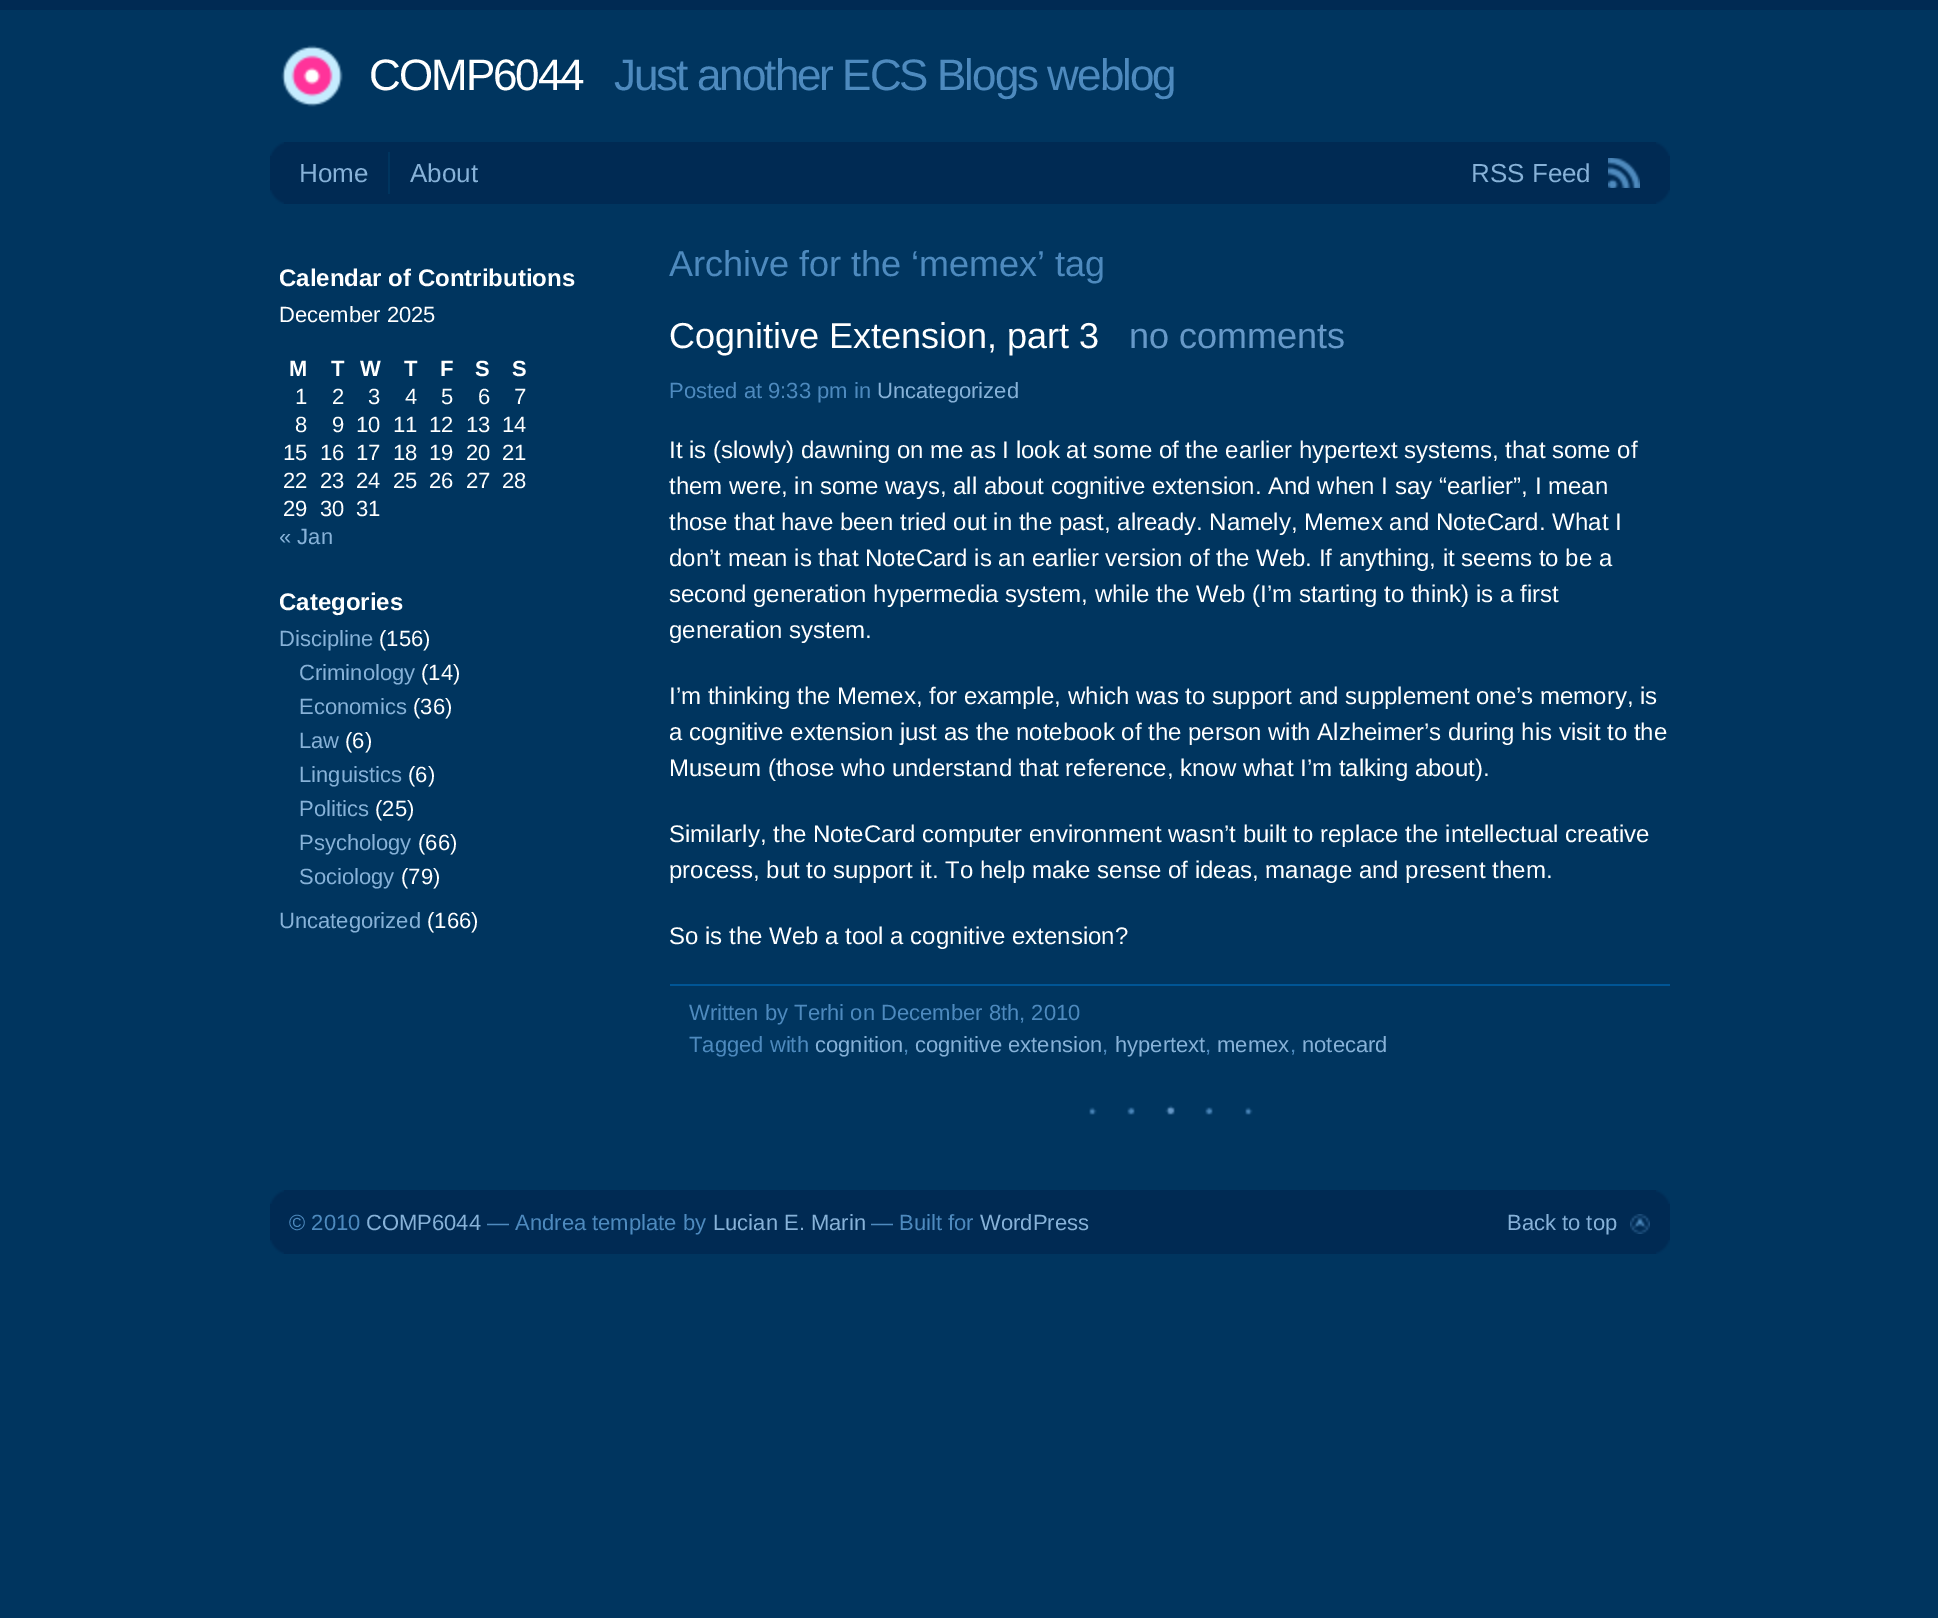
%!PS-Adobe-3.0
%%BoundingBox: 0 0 1938 1618
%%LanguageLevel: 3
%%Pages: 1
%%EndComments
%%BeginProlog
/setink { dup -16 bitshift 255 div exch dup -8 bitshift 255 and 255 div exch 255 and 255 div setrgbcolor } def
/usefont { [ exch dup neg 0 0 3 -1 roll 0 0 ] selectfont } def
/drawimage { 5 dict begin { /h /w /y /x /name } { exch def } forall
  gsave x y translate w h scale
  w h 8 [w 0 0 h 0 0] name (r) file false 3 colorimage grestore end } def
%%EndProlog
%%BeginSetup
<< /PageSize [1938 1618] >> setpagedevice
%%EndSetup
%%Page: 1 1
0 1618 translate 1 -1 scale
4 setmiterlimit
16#00355F setink
0 0 1938 1618 rectfill
16#002A53 setink
0 0 1938 10 rectfill
(img1.raw) 281 45 62 62 drawimage
/LiberationSans-Regular 44 usefont
16#FFFFFF setink
369 90 moveto -2 0 (COMP6044) ashow
16#4E8ABE setink
614 90 moveto -2 0 (Just another ECS Blogs weblog) ashow
16#002A53 setink
270 142 1400 62 rectfill
(img2.raw) 270 142 14 14 drawimage
(img3.raw) 1656 142 14 14 drawimage
16#00355F setink
388 152 2 42 rectfill
/LiberationSans-Regular 26 usefont
16#87B2D8 setink
[
    [(Home) 299 182]
    [(About) 410 182]
    [(RSS Feed) 1471 182]
] { aload pop moveto show } forall
(img4.raw) 1608 158 32 30 drawimage
(img5.raw) 270 190 14 14 drawimage
(img6.raw) 1656 190 14 14 drawimage
/LiberationSans-Bold 24 usefont
16#FFFFFF setink
279 286 moveto (Calendar of Contributions) show
/LiberationSans-Regular 22 usefont
279 322 moveto (December 2025) show
/LiberationSans-Bold 22 usefont
[
    [(M) 289 376]
    [(T) 331 376]
    [(W) 360 376]
    [(T) 404 376]
    [(F) 440 376]
    [(S) 475 376]
    [(S) 512 376]
] { aload pop moveto show } forall
/LiberationSans-Regular 22 usefont
[
    [(1) 295 404]
    [(2) 332 404]
    [(3) 368 404]
    [(4) 405 404]
    [(5) 441 404]
    [(6) 478 404]
    [(7) 514 404]
    [(8) 295 432]
    [(9) 332 432]
    [(10) 356 432]
    [(11) 393 432]
    [(12) 429 432]
    [(13) 466 432]
    [(14) 502 432]
    [(15) 283 460]
    [(16) 320 460]
    [(17) 356 460]
    [(18) 393 460]
    [(19) 429 460]
    [(20) 466 460]
    [(21) 502 460]
    [(22) 283 488]
    [(23) 320 488]
    [(24) 356 488]
    [(25) 393 488]
    [(26) 429 488]
    [(27) 466 488]
    [(28) 502 488]
    [(29) 283 516]
    [(30) 320 516]
    [(31) 356 516]
] { aload pop moveto show } forall
16#87B2D8 setink
279 544 moveto (« Jan) show
/LiberationSans-Bold 24 usefont
16#FFFFFF setink
279 610 moveto (Categories) show
/LiberationSans-Regular 22 usefont
16#87B2D8 setink
279 646 moveto (Discipline) show
16#FFFFFF setink
379 646 moveto (\(156\)) show
16#87B2D8 setink
299 680 moveto (Criminology) show
16#FFFFFF setink
421 680 moveto (\(14\)) show
16#87B2D8 setink
299 714 moveto (Economics) show
16#FFFFFF setink
413 714 moveto (\(36\)) show
16#87B2D8 setink
299 748 moveto (Law) show
16#FFFFFF setink
345 748 moveto (\(6\)) show
16#87B2D8 setink
299 782 moveto (Linguistics) show
16#FFFFFF setink
408 782 moveto (\(6\)) show
16#87B2D8 setink
299 816 moveto (Politics) show
16#FFFFFF setink
375 816 moveto (\(25\)) show
16#87B2D8 setink
299 850 moveto (Psychology) show
16#FFFFFF setink
418 850 moveto (\(66\)) show
16#87B2D8 setink
299 884 moveto (Sociology) show
16#FFFFFF setink
401 884 moveto (\(79\)) show
16#87B2D8 setink
279 928 moveto (Uncategorized) show
16#FFFFFF setink
427 928 moveto (\(166\)) show
/LiberationSans-Regular 36 usefont
16#4E8ABE setink
669 276 moveto (Archive for the ‘memex’ tag) show
16#FFFFFF setink
669 348 moveto (Cognitive Extension, part 3) show
16#6799C8 setink
1129 348 moveto (no comments) show
/LiberationSans-Regular 22 usefont
16#4E8ABE setink
669 398 moveto (Posted at 9:33 pm in) show
16#87B2D8 setink
877 398 moveto (Uncategorized) show
/LiberationSans-Regular 24 usefont
16#FFFFFF setink
[
    [(It is \(slowly\) dawning on me as I look at some of the earlier hypertext systems, that some of) 669 458]
    [(them were, in some ways, all about cognitive extension. And when I say “earlier”, I mean) 669 494]
    [(those that have been tried out in the past, already. Namely, Memex and NoteCard. What I) 669 530]
    [(don’t mean is that NoteCard is an earlier version of the Web. If anything, it seems to be a) 669 566]
    [(second generation hypermedia system, while the Web \(I’m starting to think\) is a first) 669 602]
    [(generation system.) 669 638]
    [(I’m thinking the Memex, for example, which was to support and supplement one’s memory, is) 669 704]
    [(a cognitive extension just as the notebook of the person with Alzheimer’s during his visit to the) 669 740]
    [(Museum \(those who understand that reference, know what I’m talking about\).) 669 776]
    [(Similarly, the NoteCard computer environment wasn’t built to replace the intellectual creative) 669 842]
    [(process, but to support it. To help make sense of ideas, manage and present them.) 669 878]
    [(So is the Web a tool a cognitive extension?) 669 944]
] { aload pop moveto show } forall
(img7.raw) 1089 1105 164 10 drawimage
16#005595 setink
670 984 1000 2 rectfill
/LiberationSans-Regular 22 usefont
16#4E8ABE setink
689 1020 moveto (Written by Terhi on December 8th, 2010) show
689 1052 moveto (Tagged with) show
16#87B2D8 setink
815 1052 moveto (cognition) show
16#4E8ABE setink
903 1052 moveto (,) show
16#87B2D8 setink
915 1052 moveto (cognitive extension) show
16#4E8ABE setink
1102 1052 moveto (,) show
16#87B2D8 setink
1115 1052 moveto (hypertext) show
16#4E8ABE setink
1205 1052 moveto (,) show
16#87B2D8 setink
1217 1052 moveto (memex) show
16#4E8ABE setink
1290 1052 moveto (,) show
16#87B2D8 setink
1302 1052 moveto (notecard) show
16#002A53 setink
270 1190 1400 64 rectfill
(img2.raw) 270 1190 14 14 drawimage
(img3.raw) 1656 1190 14 14 drawimage
16#4E8ABE setink
289 1230 moveto (© 2010) show
16#87B2D8 setink
366 1230 moveto (COMP6044) show
16#4E8ABE setink
487 1230 moveto (— Andrea template by) show
16#87B2D8 setink
713 1230 moveto (Lucian E. Marin) show
16#4E8ABE setink
871 1230 moveto (— Built for) show
16#87B2D8 setink
980 1230 moveto (WordPress) show
1507 1230 moveto (Back to top) show
(img8.raw) 1630 1214 20 20 drawimage
(img5.raw) 270 1240 14 14 drawimage
(img6.raw) 1656 1240 14 14 drawimage
showpage
%%EOF
